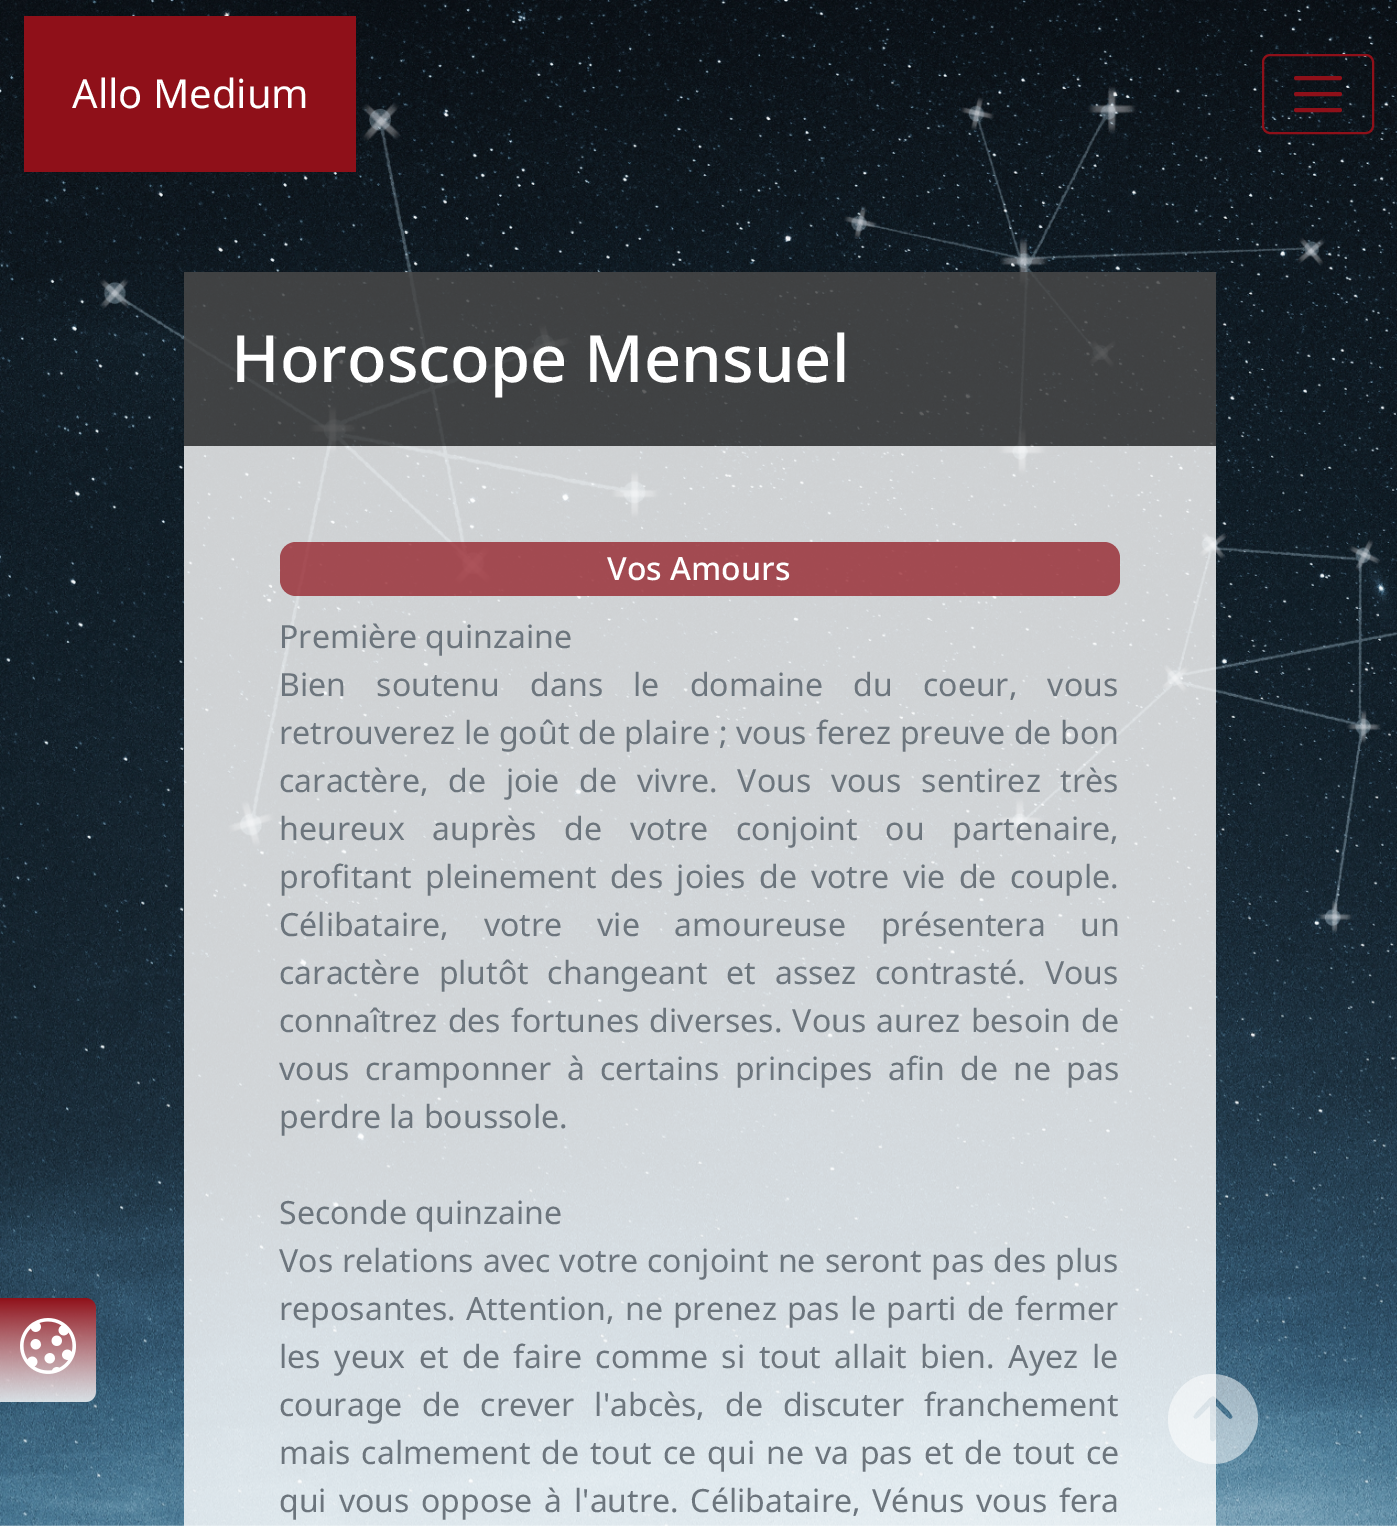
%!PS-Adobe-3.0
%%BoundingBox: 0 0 1397 1526
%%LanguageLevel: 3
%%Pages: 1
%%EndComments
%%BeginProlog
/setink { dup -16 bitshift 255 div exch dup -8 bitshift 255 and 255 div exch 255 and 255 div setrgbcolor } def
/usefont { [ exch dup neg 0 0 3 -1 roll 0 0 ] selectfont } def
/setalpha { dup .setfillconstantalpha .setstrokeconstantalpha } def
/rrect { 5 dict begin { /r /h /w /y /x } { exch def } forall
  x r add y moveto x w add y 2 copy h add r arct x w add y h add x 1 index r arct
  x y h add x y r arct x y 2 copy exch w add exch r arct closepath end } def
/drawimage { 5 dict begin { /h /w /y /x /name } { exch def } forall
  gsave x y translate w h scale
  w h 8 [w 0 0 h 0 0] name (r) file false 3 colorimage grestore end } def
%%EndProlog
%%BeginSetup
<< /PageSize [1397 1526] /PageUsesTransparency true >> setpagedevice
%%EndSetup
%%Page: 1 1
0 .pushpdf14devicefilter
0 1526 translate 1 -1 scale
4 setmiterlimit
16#FFFFFF setink
0 0 1397 1526 rectfill
(img1.raw) 0 0 1397 1526 drawimage
16#8F1019 setink
24 16 332 156 rectfill
/NotoSans-Regular 40 usefont
16#FFFFFF setink
72 108 moveto (Allo Medium) show
16#8F1019 setink
2 setlinewidth
1263 55 110 78 7 rrect stroke
4 setlinewidth
1 setlinecap
1296 78 moveto 1340 78 lineto 1296 94 moveto 1340 94 lineto 1296 110 moveto 1340 110 lineto stroke
(img2.raw) 20 1318 56 56 drawimage
0.85 setalpha
16#484848 setink
184 272 1032 174 rectfill
/NotoSans-Medium 65 usefont
1 setalpha
16#FFFFFF setink
231 382 moveto (Horoscope Mensuel) show
0.8 setalpha
184 446 1032 1080 rectfill
0.7 setalpha
16#8F1019 setink
280 542 840 54 16 rrect fill
/NotoSans-Medium 32 usefont
1 setalpha
16#FFFFFF setink
607 580 moveto (Vos Amours) show
/NotoSans-Regular 32 usefont
16#6C757D setink
279 648 moveto (Première quinzaine) show
279 696 moveto 22 0 32 (Bien soutenu dans le domaine du coeur, vous) widthshow
279 744 moveto 0.5 0 32 (retrouverez le goût de plaire ; vous ferez preuve de bon) widthshow
279 792 moveto 11.5 0 32 (caractère, de joie de vivre. Vous vous sentirez très) widthshow
279 840 moveto 19.5 0 32 (heureux auprès de votre conjoint ou partenaire,) widthshow
279 888 moveto 5.25 0 32 (profitant pleinement des joies de votre vie de couple.) widthshow
279 936 moveto 26.5 0 32 (Célibataire, votre vie amoureuse présentera un) widthshow
279 984 moveto 10.5 0 32 (caractère plutôt changeant et assez contrasté. Vous) widthshow
279 1032 moveto 2 0 32 (connaîtrez des fortunes diverses. Vous aurez besoin de) widthshow
279 1080 moveto 7 0 32 (vous cramponner à certains principes afin de ne pas) widthshow
279 1128 moveto (perdre la boussole.) show
279 1224 moveto (Seconde quinzaine) show
279 1272 moveto 0.75 0 32 (Vos relations avec votre conjoint ne seront pas des plus) widthshow
279 1320 moveto 1.75 0 32 (reposantes. Attention, ne prenez pas le parti de fermer) widthshow
279 1368 moveto 5.25 0 32 (les yeux et de faire comme si tout allait bien. Ayez le) widthshow
279 1416 moveto 11.75 0 32 (courage de crever l'abcès, de discuter franchement) widthshow
279 1464 moveto 2.6 0 32 (mais calmement de tout ce qui ne va pas et de tout ce) widthshow
279 1512 moveto 3.5 0 32 (qui vous oppose à l'autre. Célibataire, Vénus vous fera) widthshow
0.52 setalpha
16#FFFFFF setink
1258 1419 moveto 1258 1375 1200 1357 1176 1394 curveto 1171 1401 1168 1410 1168 1419 curveto 1168 1463 1226 1481 1250 1444 curveto 1255 1437 1258 1428 1258 1419 curveto closepath 1216 1439 moveto 1215 1440 lineto 1214 1443 1210 1441 1210 1439 curveto 1210 1406 lineto 1208 1408 1198 1419 1196 1419 curveto 1189 1418 1198 1410 1202 1406 curveto 1204 1404 1210 1396 1213 1396 curveto 1216 1397 1222 1404 1224 1406 curveto 1228 1410 1237 1418 1230 1419 curveto 1228 1419 1218 1408 1216 1406 curveto closepath fill
.poppdf14devicefilter showpage
%%EOF
